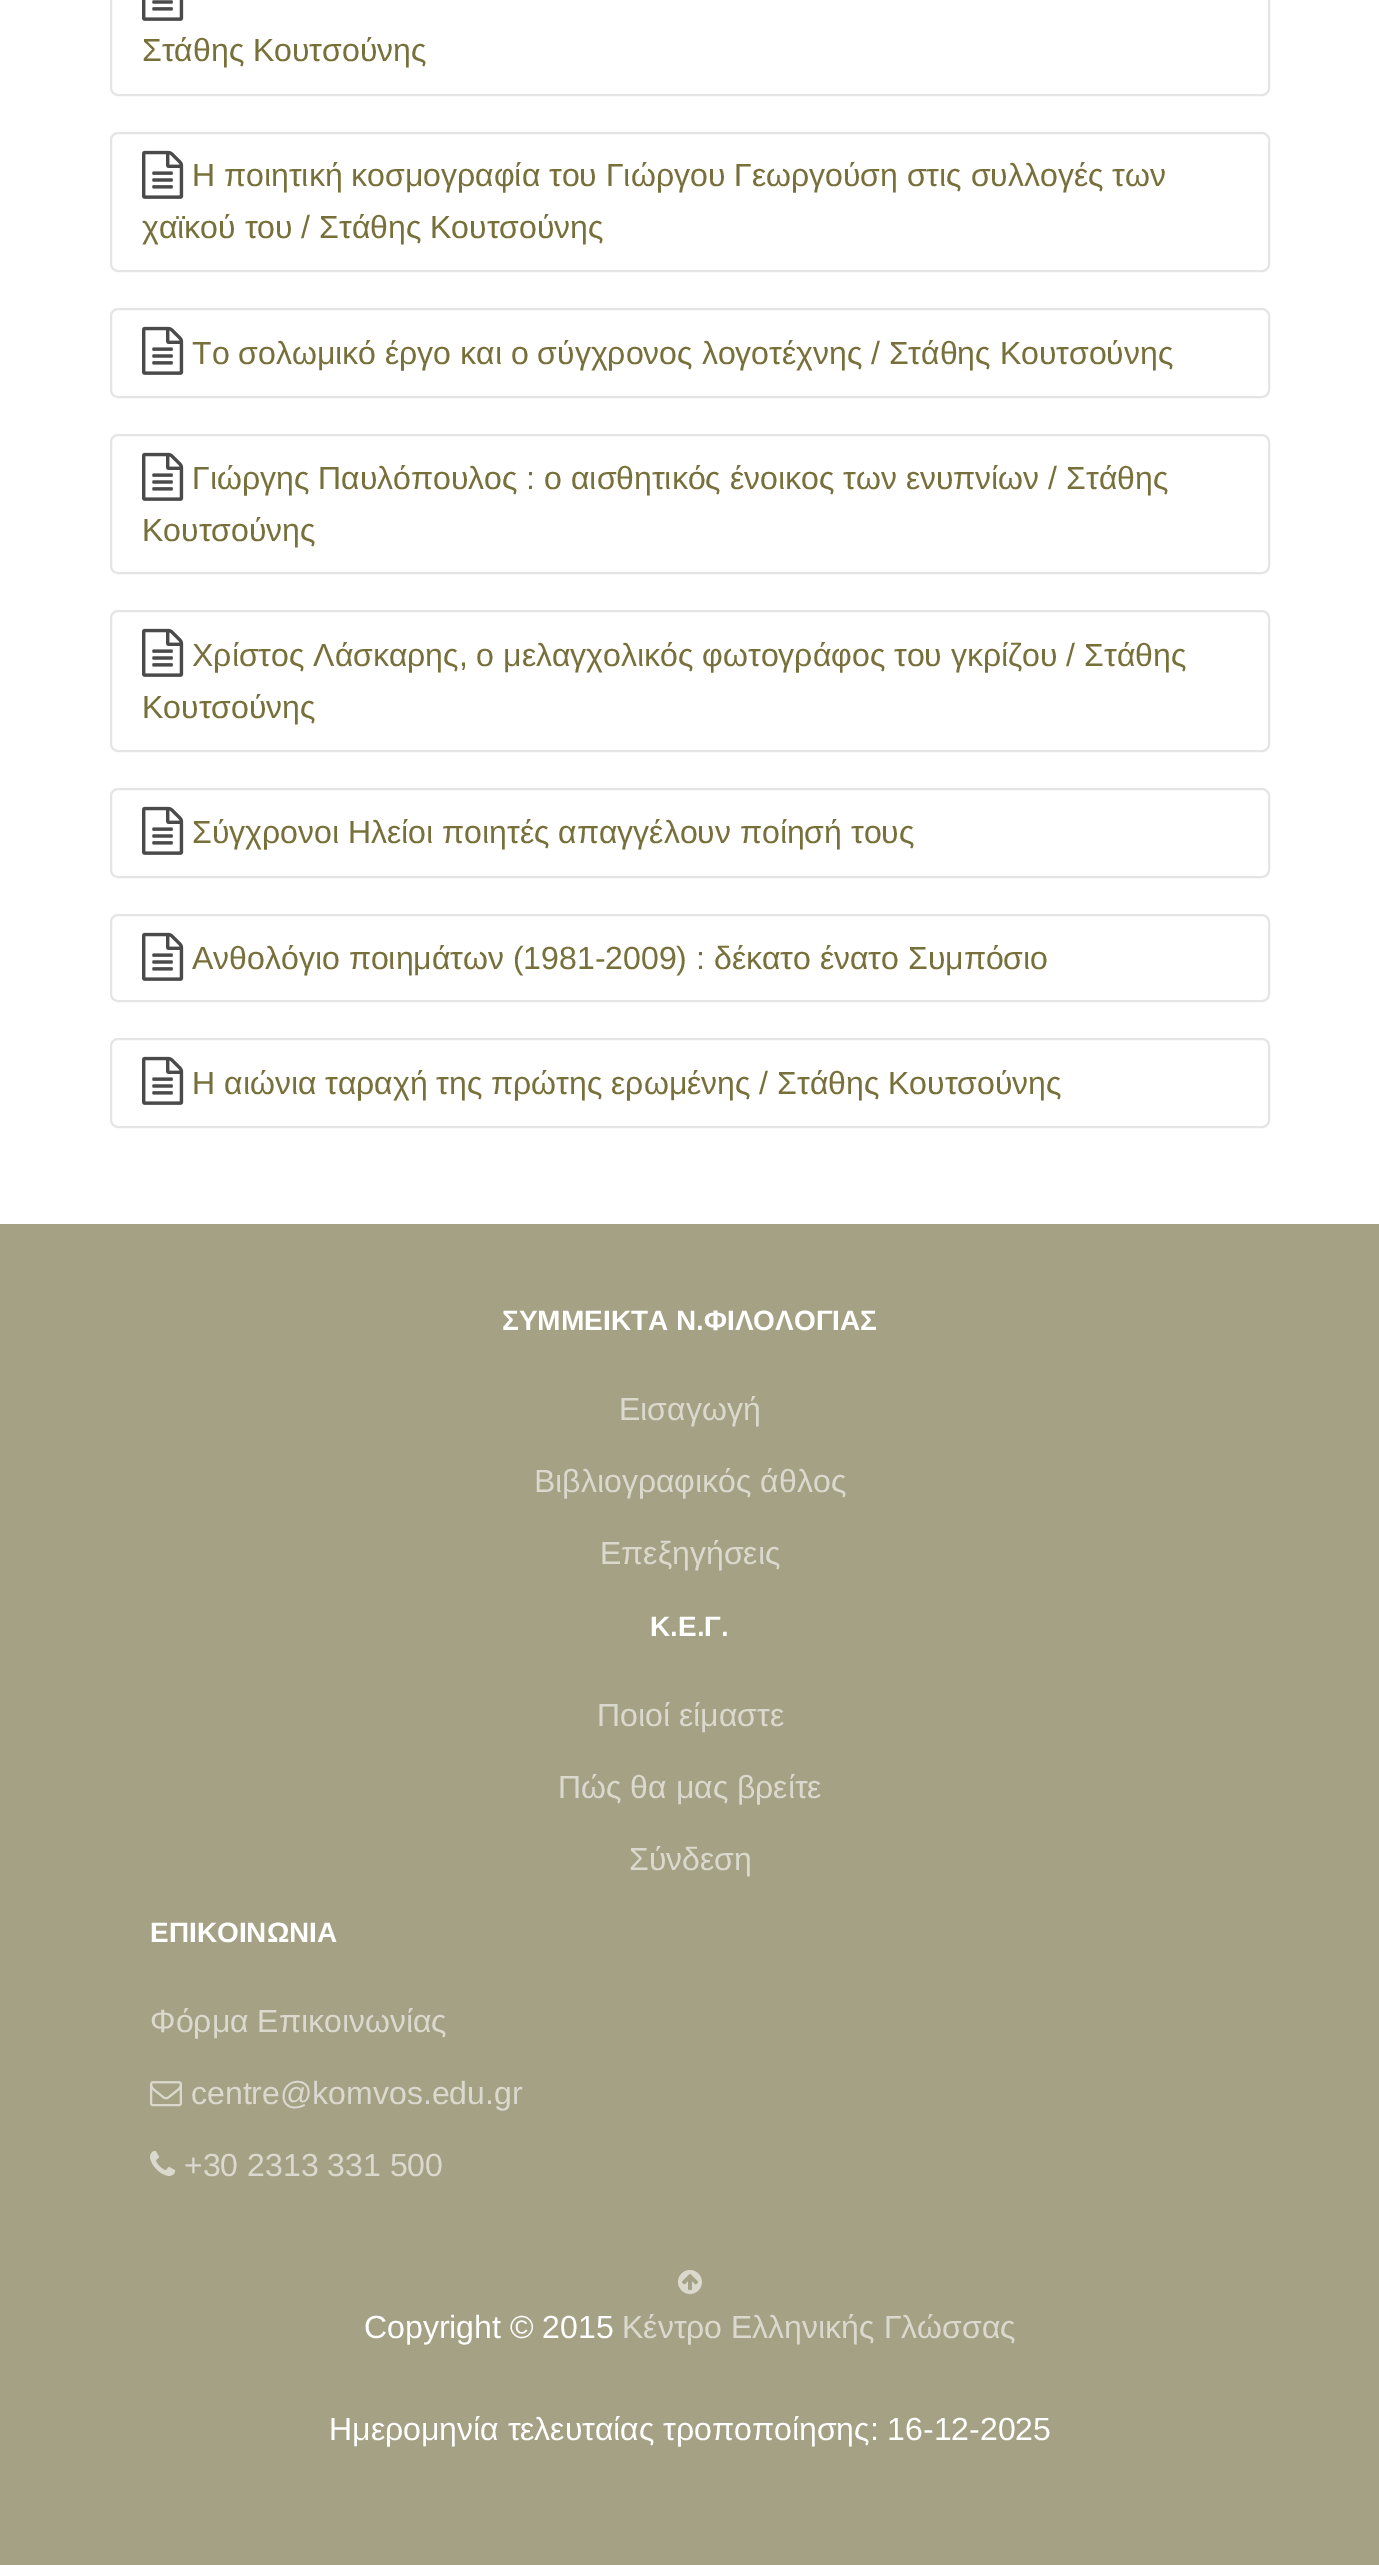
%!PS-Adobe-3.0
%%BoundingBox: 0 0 1379 2565
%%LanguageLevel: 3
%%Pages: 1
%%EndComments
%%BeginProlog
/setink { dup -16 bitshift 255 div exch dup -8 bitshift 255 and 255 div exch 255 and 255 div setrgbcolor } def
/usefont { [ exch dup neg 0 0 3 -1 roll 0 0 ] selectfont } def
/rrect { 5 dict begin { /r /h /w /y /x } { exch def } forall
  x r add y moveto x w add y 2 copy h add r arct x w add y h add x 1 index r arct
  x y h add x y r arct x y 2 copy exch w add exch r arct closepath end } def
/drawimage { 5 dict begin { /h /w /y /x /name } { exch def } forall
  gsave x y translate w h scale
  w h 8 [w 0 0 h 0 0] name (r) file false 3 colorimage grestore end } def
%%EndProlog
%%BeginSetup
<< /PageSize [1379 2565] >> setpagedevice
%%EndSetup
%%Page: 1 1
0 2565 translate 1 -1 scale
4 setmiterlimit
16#FFFFFF setink
0 0 1379 2565 rectfill
16#E5E5E5 setink
2 setlinewidth
111 -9 1158 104 7 rrect stroke
(img1.raw) 142 0 42 21 drawimage
/LiberationSans-Regular 32 usefont
16#78703A setink
142 61 moveto (Στάθης Κουτσούνης) show
16#E5E5E5 setink
111 133 1158 138 7 rrect stroke
(img2.raw) 142 150 42 49 drawimage
16#78703A setink
192 186 moveto (Η ποιητική κοσμογραφία του Γιώργου Γεωργούση στις συλλογές των) show
142 238 moveto (χαϊκού του / Στάθης Κουτσούνης) show
16#E5E5E5 setink
111 309 1158 88 7 rrect stroke
(img2.raw) 142 326 42 49 drawimage
16#78703A setink
192 364 moveto (Το σολωμικό έργο και ο σύγχρονος λογοτέχνης / Στάθης Κουτσούνης) show
16#E5E5E5 setink
111 435 1158 138 7 rrect stroke
(img2.raw) 142 452 42 49 drawimage
16#78703A setink
192 489 moveto (Γιώργης Παυλόπουλος : ο αισθητικός ένοικος των ενυπνίων / Στάθης) show
142 541 moveto (Κουτσούνης) show
16#E5E5E5 setink
111 611 1158 140 7 rrect stroke
(img2.raw) 142 628 42 49 drawimage
16#78703A setink
192 666 moveto (Χρίστος Λάσκαρης, ο μελαγχολικός φωτογράφος του γκρίζου / Στάθης) show
142 718 moveto (Κουτσούνης) show
16#E5E5E5 setink
111 789 1158 88 7 rrect stroke
(img2.raw) 142 806 42 49 drawimage
16#78703A setink
192 843 moveto (Σύγχρονοι Ηλείοι ποιητές απαγγέλουν ποίησή τους) show
16#E5E5E5 setink
111 915 1158 86 7 rrect stroke
(img2.raw) 142 932 42 49 drawimage
16#78703A setink
192 969 moveto (Ανθολόγιο ποιημάτων \(1981-2009\) : δέκατο ένατο Συμπόσιο) show
16#E5E5E5 setink
111 1039 1158 88 7 rrect stroke
(img2.raw) 142 1056 42 49 drawimage
16#78703A setink
192 1094 moveto (Η αιώνια ταραχή της πρώτης ερωμένης / Στάθης Κουτσούνης) show
16#A5A184 setink
0 1224 1379 1341 rectfill
/LiberationSans-Bold 28 usefont
16#FFFFFF setink
502 1330 moveto (ΣΥΜΜΕΙΚΤΑ Ν.ΦΙΛΟΛΟΓΙΑΣ) show
/LiberationSans-Regular 32 usefont
16#DBD9CE setink
[
    [(Εισαγωγή) 619 1420]
    [(Βιβλιογραφικός άθλος) 534 1492]
    [(Επεξηγήσεις) 600 1564]
] { aload pop moveto show } forall
/LiberationSans-Bold 28 usefont
16#FFFFFF setink
650 1636 moveto (Κ.Ε.Γ.) show
/LiberationSans-Regular 32 usefont
16#DBD9CE setink
[
    [(Ποιοί είμαστε) 597 1726]
    [(Πώς θα μας βρείτε) 558 1798]
    [(Σύνδεση) 629 1870]
] { aload pop moveto show } forall
/LiberationSans-Bold 28 usefont
16#FFFFFF setink
150 1942 moveto (ΕΠΙΚΟΙΝΩΝΙΑ) show
/LiberationSans-Regular 32 usefont
16#DBD9CE setink
150 2032 moveto (Φόρμα Επικοινωνίας) show
(img3.raw) 150 2081 32 26 drawimage
191 2104 moveto (centre@komvos.edu.gr) show
(img4.raw) 150 2150 26 26 drawimage
184 2176 moveto (+30 2313 331 500) show
(img5.raw) 678 2270 24 24 drawimage
16#FFFFFF setink
364 2338 moveto (Copyright © 2015) show
16#DBD9CE setink
622 2338 moveto (Κέντρο Ελληνικής Γλώσσας) show
16#FFFFFF setink
329 2440 moveto (Ημερομηνία τελευταίας τροποποίησης: 16-12-2025) show
showpage
%%EOF
